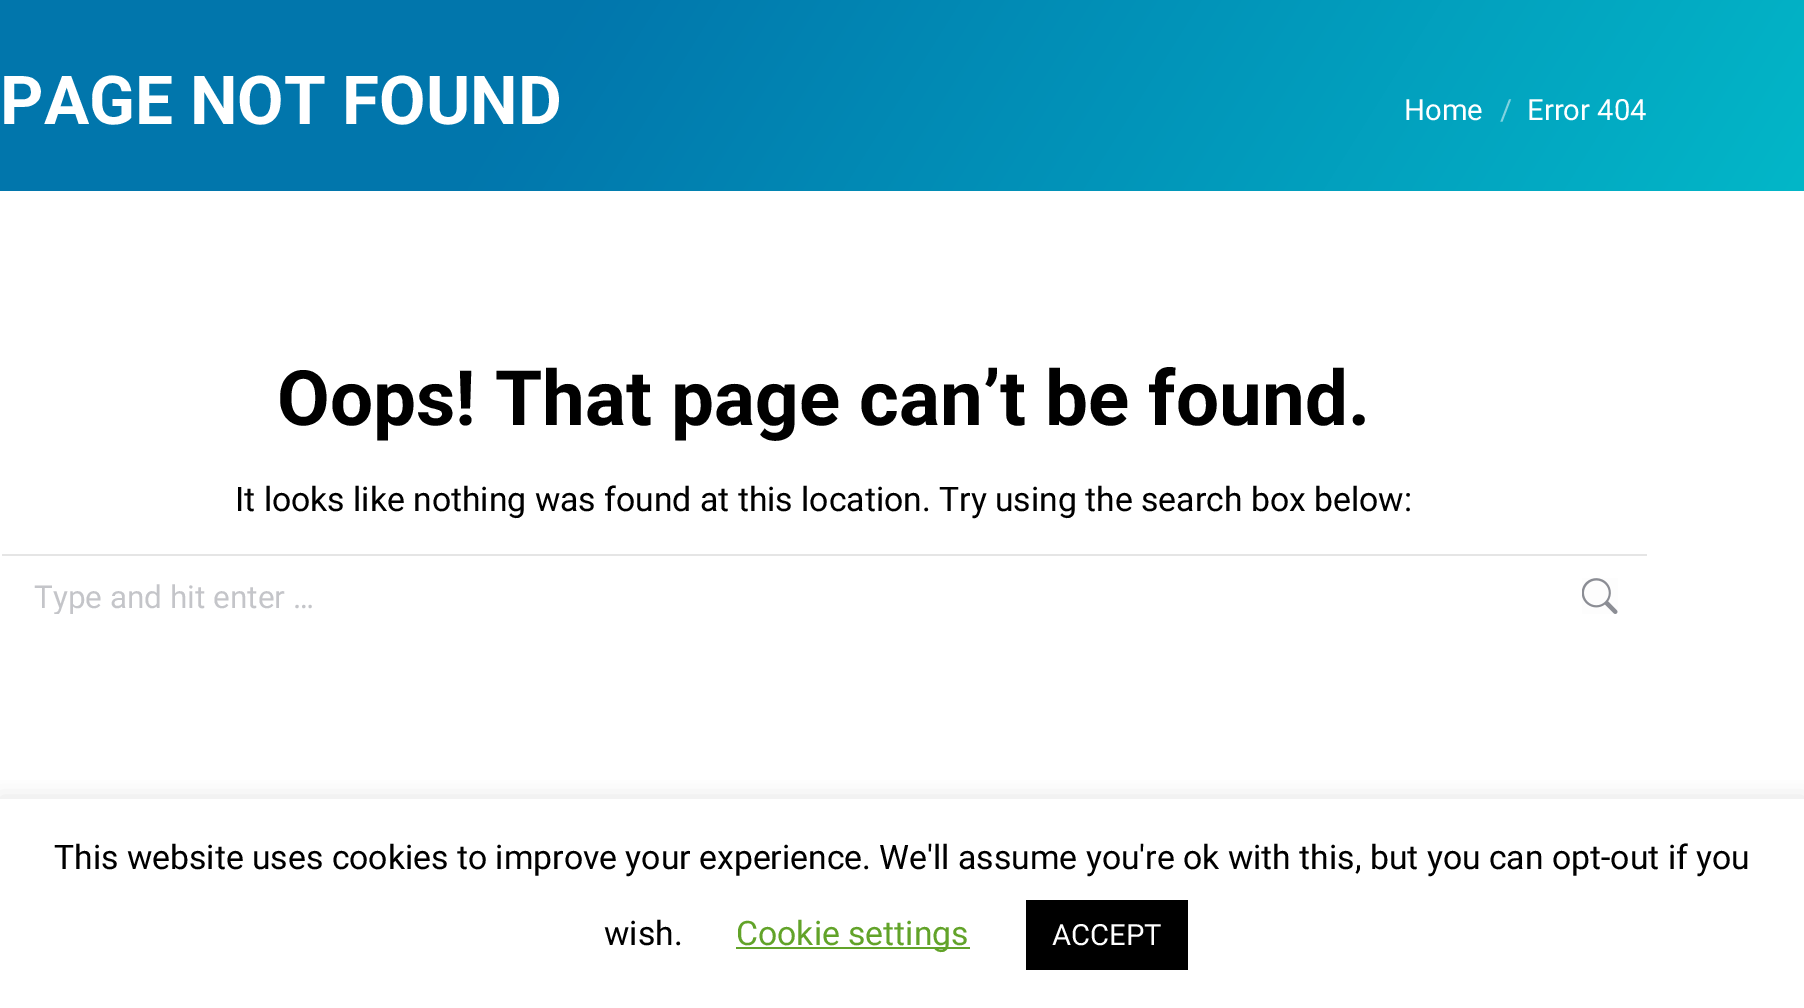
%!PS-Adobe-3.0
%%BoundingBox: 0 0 1804 1008
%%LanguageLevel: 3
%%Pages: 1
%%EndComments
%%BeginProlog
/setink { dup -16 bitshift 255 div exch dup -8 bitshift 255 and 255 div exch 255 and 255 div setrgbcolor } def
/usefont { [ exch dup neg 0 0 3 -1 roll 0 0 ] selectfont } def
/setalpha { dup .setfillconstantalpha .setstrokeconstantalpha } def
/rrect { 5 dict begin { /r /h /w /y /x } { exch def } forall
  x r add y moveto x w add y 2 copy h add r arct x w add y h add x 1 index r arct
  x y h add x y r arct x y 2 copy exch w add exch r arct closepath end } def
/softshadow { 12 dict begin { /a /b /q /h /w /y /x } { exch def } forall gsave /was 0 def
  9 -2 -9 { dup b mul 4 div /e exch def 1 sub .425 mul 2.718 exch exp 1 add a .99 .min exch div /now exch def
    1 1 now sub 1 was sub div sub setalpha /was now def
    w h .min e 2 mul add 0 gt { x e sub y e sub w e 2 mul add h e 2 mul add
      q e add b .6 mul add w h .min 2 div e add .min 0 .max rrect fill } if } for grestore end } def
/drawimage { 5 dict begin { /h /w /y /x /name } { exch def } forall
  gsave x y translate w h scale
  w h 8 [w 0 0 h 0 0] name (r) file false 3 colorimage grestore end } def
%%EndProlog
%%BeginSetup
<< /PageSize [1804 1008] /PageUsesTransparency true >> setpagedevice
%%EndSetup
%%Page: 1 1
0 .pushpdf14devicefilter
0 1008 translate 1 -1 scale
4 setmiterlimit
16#FFFFFF setink
0 0 1804 1008 rectfill
gsave 0 0 moveto 1804 0 lineto 1804 191 lineto 0 191 lineto closepath clip newpath
<< /ShadingType 2 /ColorSpace /DeviceRGB /Coords [210 -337 1594 528] /Extend [true true] /Function << /FunctionType 3 /Domain [0 1] /Functions [<< /FunctionType 2 /Domain [0 1] /C0 [0.004 0.463 0.675] /C1 [0.004 0.463 0.675] /N 1 >> << /FunctionType 2 /Domain [0 1] /C0 [0.004 0.463 0.675] /C1 [0.008 0.718 0.784] /N 1 >>] /Bounds [0.3] /Encode [0 1 0 1] >> >> shfill grestore
/Roboto-Bold 67.5 usefont
0 124 moveto (PAGE NOT FOUND) show
/Roboto-Regular 29.25 usefont
1404 120 moveto (Home) show
16#81D3E0 setink
1500 120 moveto (/) show
16#FFFFFF setink
1527 120 moveto (Error 404) show
/Roboto-Bold 76.5 usefont
16#000000 setink
277 425 moveto (Oops! That page can’t be found.) show
/Roboto-Regular 33.75 usefont
235 511 moveto (It looks like nothing was found at this location. Try using the search box below:) show
16#E5E5E5 setink
2 554 1645 2 rectfill
gsave
34 578 1546 36 rectclip
/Roboto-Regular 31.5 usefont
16#C4C5C9 setink
34 608 moveto (Type and hit enter …) show
grestore
(img1.raw) 1582 578 36 36 drawimage
gsave
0 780 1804 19 rectclip
16#ACABAB setink
0 797 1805 209 0 11 0.3 softshadow
grestore
16#000000 setink
54 869 moveto (This website uses cookies to improve your experience. We'll assume you're ok with this, but you can opt-out if you) show
604 945 moveto (wish.) show
16#62A329 setink
736 947 234 2 rectfill
736 945 moveto (Cookie settings) show
16#000000 setink
1026 900 162 70 rectfill
/Roboto-Regular 29.25 usefont
16#FFFFFF setink
1052 945 moveto (ACCEPT) show
.poppdf14devicefilter showpage
%%EOF
